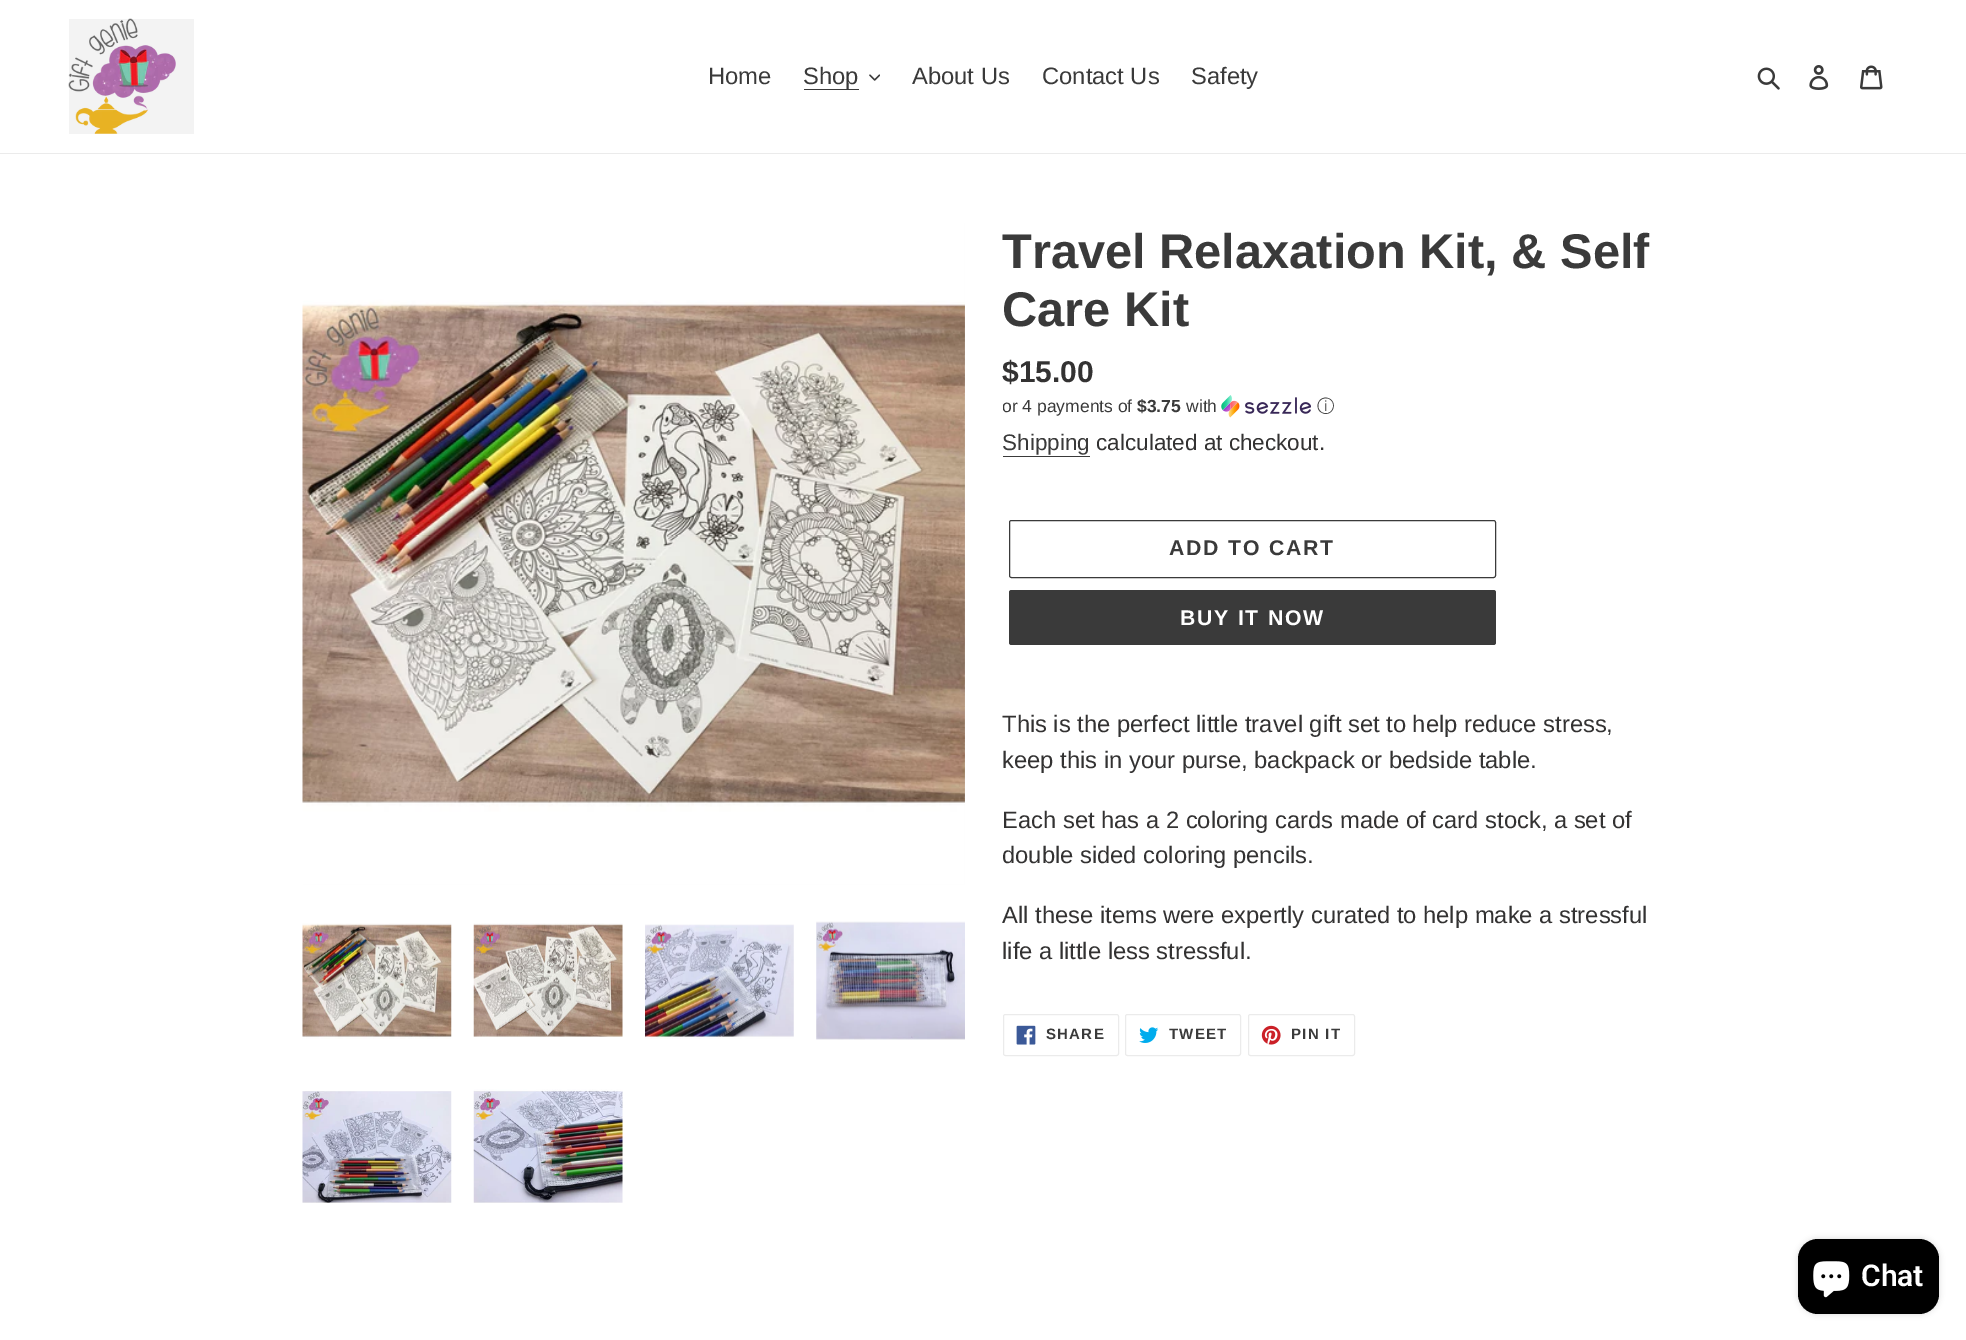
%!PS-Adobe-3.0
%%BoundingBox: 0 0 1966 1340
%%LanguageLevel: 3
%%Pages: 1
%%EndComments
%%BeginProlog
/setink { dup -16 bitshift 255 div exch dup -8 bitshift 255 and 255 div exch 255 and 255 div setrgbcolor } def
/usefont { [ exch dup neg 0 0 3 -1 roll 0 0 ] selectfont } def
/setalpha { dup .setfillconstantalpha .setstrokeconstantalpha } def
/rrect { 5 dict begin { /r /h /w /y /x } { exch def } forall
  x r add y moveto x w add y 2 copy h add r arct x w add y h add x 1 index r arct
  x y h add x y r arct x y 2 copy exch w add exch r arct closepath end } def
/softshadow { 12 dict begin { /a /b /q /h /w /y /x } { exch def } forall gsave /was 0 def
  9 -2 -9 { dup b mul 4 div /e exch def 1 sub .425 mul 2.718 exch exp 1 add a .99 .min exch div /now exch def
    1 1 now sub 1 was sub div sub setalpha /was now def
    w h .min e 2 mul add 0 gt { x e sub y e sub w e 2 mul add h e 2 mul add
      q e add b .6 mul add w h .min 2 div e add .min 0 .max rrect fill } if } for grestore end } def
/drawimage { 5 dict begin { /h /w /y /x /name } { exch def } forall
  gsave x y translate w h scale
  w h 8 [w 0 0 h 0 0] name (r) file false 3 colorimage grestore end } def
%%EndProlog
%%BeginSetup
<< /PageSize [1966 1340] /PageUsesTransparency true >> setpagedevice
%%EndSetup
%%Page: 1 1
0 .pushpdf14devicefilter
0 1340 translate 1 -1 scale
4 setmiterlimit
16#FFFFFF setink
0 0 1966 1340 rectfill
16#EBEBEB setink
0 153 1966 1 rectfill
16#F3F3F3 setink
69 19 125 115 rectfill
(img1.raw) 68 18 108 116 drawimage
/LiberationSans-Regular 23.75 usefont
16#3A3A3A setink
708 84 moveto (Home) show
803 84 moveto (Shop) show
804 89 55 1 rectfill
(img2.raw) 869 74 11 7 drawimage
[
    [(About Us) 912 84]
    [(Contact Us) 1042 84]
    [(Safety) 1191 84]
] { aload pop moveto show } forall
(img3.raw) 1757 67 23 23 drawimage
(img4.raw) 1809 65 20 25 drawimage
(img5.raw) 1860 65 23 25 drawimage
(img6.raw) 302 223 663 662 drawimage
(img7.raw) 302 923 150 116 drawimage
(img8.raw) 473 923 150 114 drawimage
(img9.raw) 645 924 149 115 drawimage
(img10.raw) 816 921 149 119 drawimage
(img11.raw) 302 1091 150 112 drawimage
(img12.raw) 473 1089 150 114 drawimage
/LiberationSans-Bold 48.75 usefont
1002 268 moveto (Travel Relaxation Kit, & Self) show
1002 326 moveto (Care Kit) show
/LiberationSans-Bold 30 usefont
16#333232 setink
1002 382 moveto ($15.00) show
gsave
1003 394 331 24 rectclip
/LiberationSans-Regular 17.5 usefont
16#3A3A3A setink
1002 412 moveto (or 4 payments of) show
grestore
/LiberationSans-Bold 17.5 usefont
16#3A3A3A setink
1137 412 moveto ($3.75) show
/LiberationSans-Regular 17.5 usefont
1186 412 moveto (with) show
(img13.raw) 1221 395 90 23 drawimage
/WenQuanYiZenHei-Medium 17.5 usefont
1317 412 moveto (ⓘ) show
/LiberationSans-Regular 22.5 usefont
1002 450 moveto (Shipping) show
1003 456 87 1 rectfill
16#333232 setink
1096 450 moveto (calculated at checkout.) show
16#3A3A3A setink
1009.5 520.5 486 57 2 rrect stroke
/LiberationSans-Bold 21.25 usefont
1169 555 moveto 1.75 0 (ADD TO CART) ashow
1009 590 487 55 2.5 rrect fill
16#FFFFFF setink
1180 625 moveto 1.75 0 (BUY IT NOW) ashow
/LiberationSans-Regular 23.75 usefont
16#333232 setink
[
    [(This is the perfect little travel gift set to help reduce stress,) 1002 732]
    [(keep this in your purse, backpack or bedside table.) 1002 768]
    [(Each set has a 2 coloring cards made of card stock, a set of) 1002 828]
    [(double sided coloring pencils.) 1002 863]
    [(All these items were expertly curated to help make a stressful) 1002 923]
    [(life a little less stressful.) 1002 959]
] { aload pop moveto show } forall
16#EBEBEB setink
1003.5 1014.5 115 41 2 rrect stroke
(img14.raw) 1016 1025 20 20 drawimage
/LiberationSans-Bold 15 usefont
16#3A3A3A setink
1046 1039 moveto 1.25 0 (SHARE) ashow
16#EBEBEB setink
1125.5 1014.5 115 41 2 rrect stroke
(img15.raw) 1139 1027 20 16 drawimage
16#3A3A3A setink
1169 1039 moveto 1.25 0 (TWEET) ashow
16#EBEBEB setink
1248.5 1014.5 106 41 2 rrect stroke
(img16.raw) 1261 1025 20 20 drawimage
16#3A3A3A setink
1291 1039 moveto 1.25 0 (PIN IT) ashow
16#000000 setink
1798 1239 141 75 20 3 0.15 softshadow
1798 1239 141 75 20 rrect fill
(img17.raw) 1813 1261 37 37 drawimage
/Roboto-SemiBold 30 usefont
16#FFFFFF setink
1861 1286 moveto (Chat) show
.poppdf14devicefilter showpage
%%EOF
